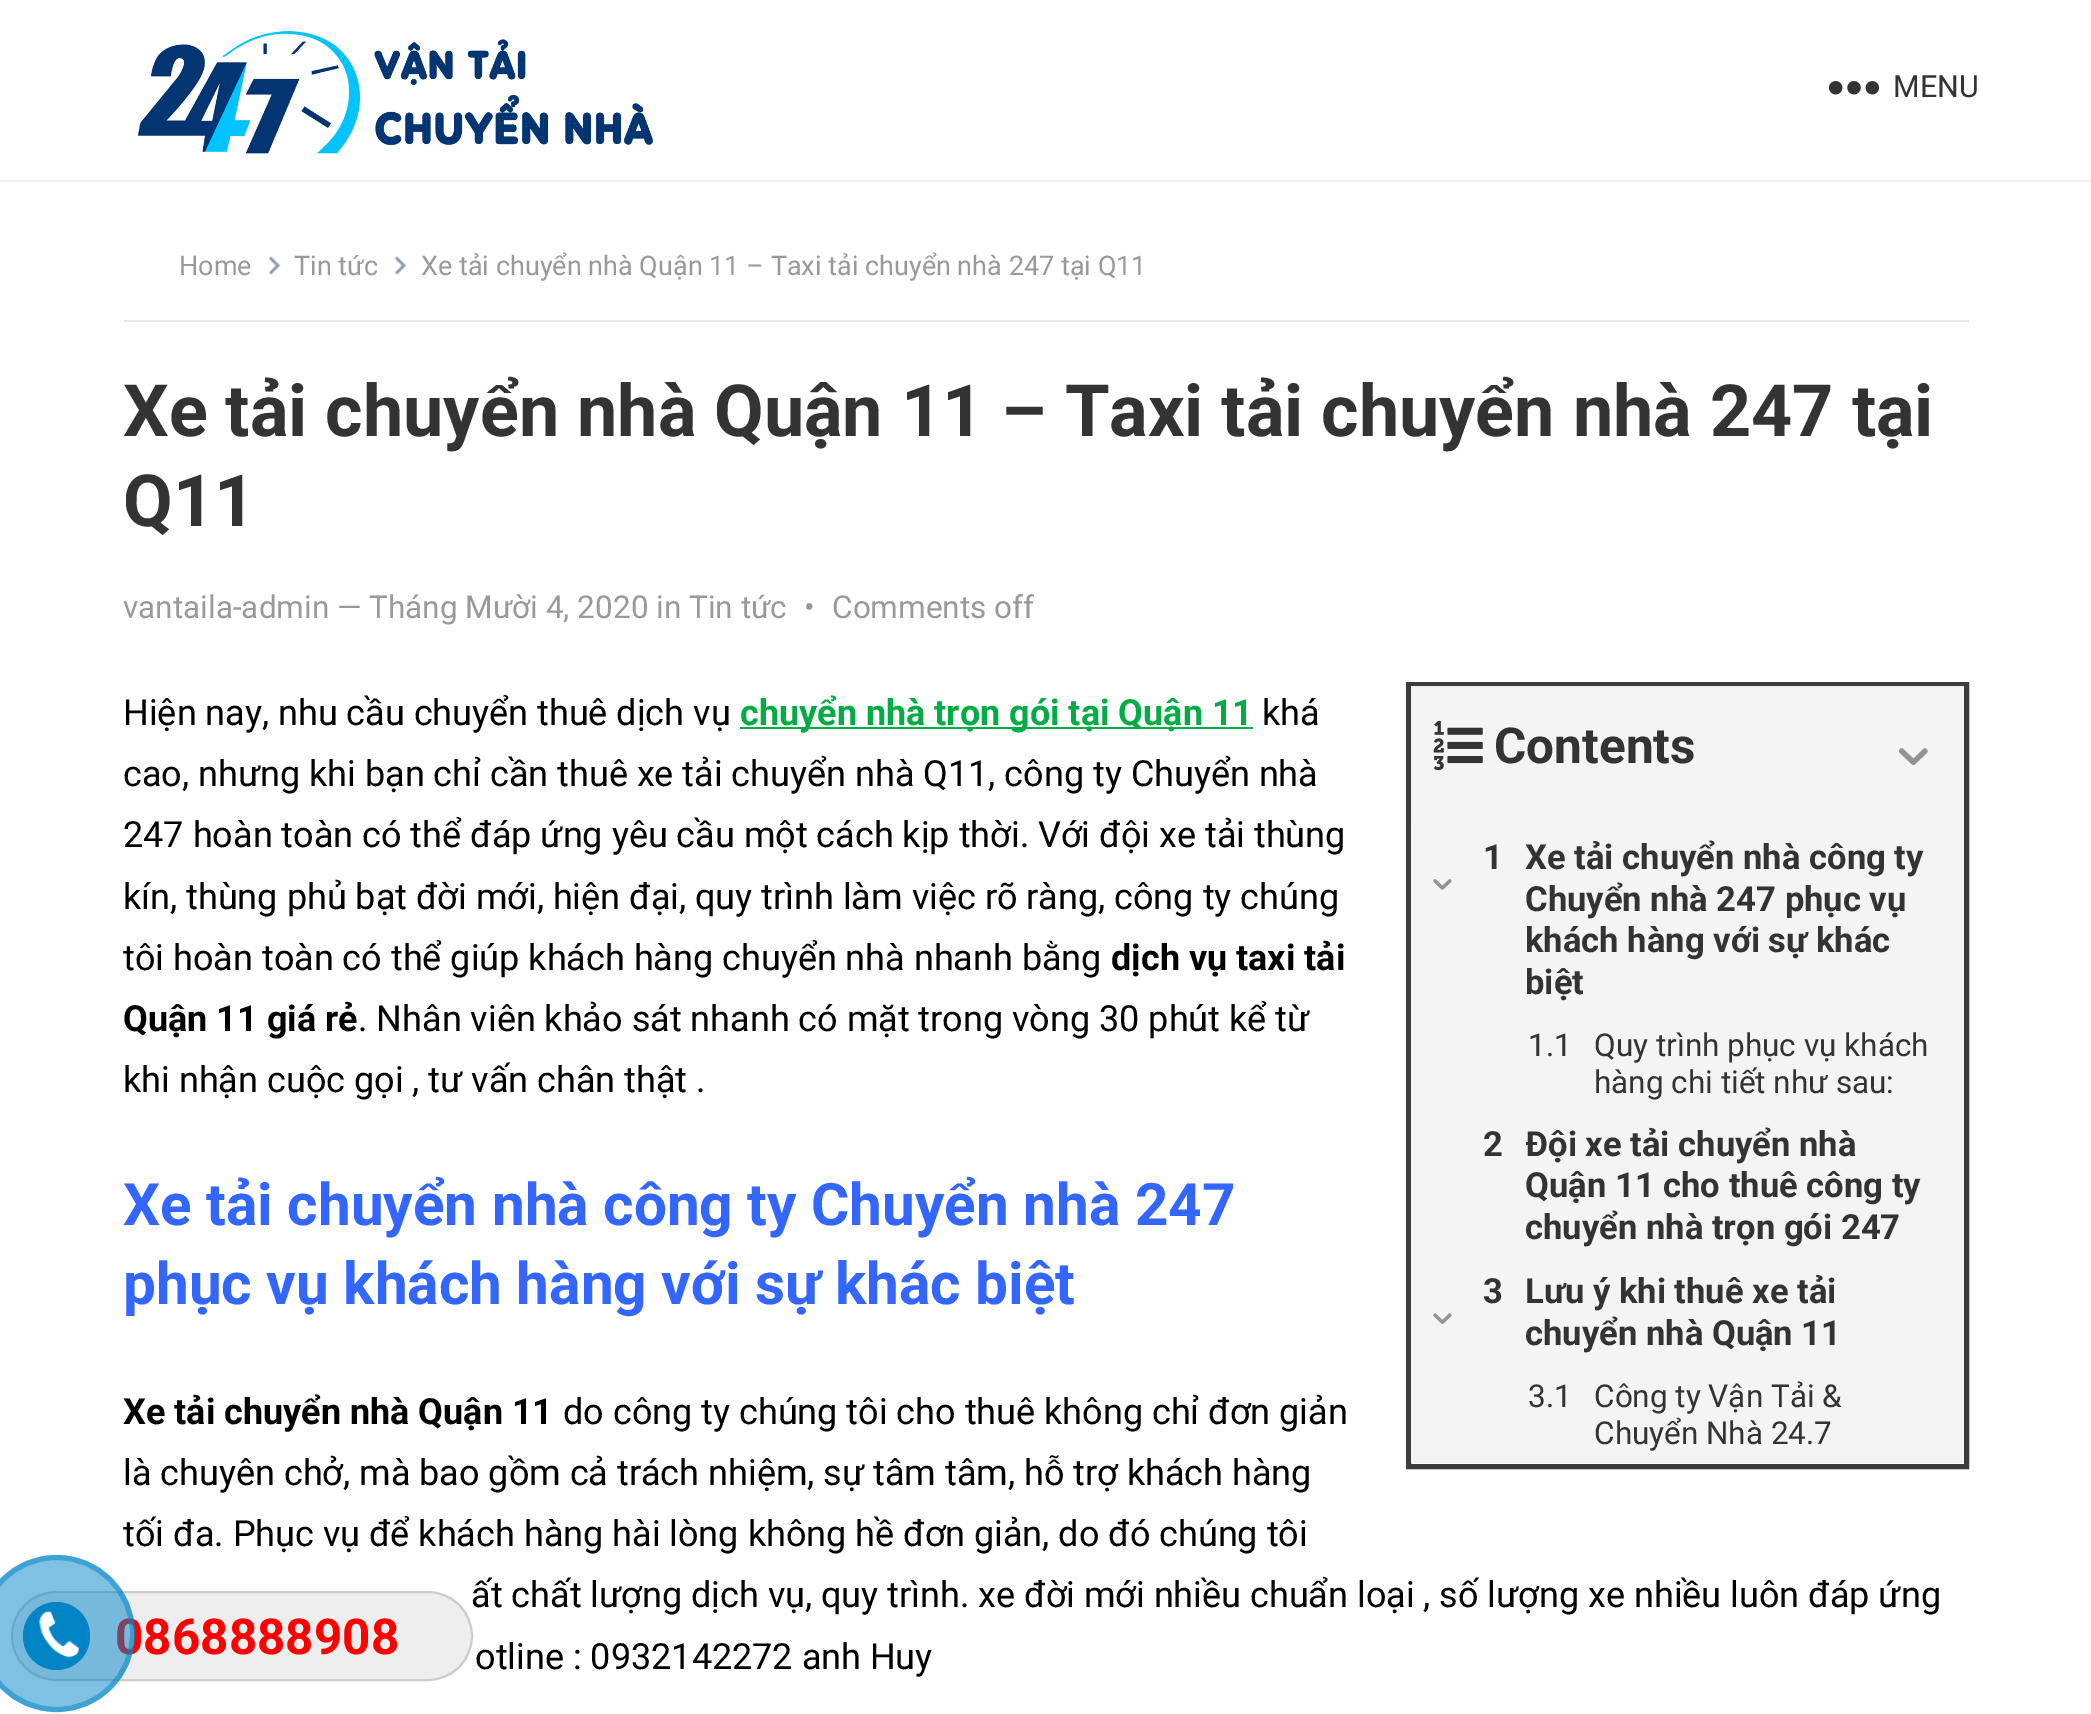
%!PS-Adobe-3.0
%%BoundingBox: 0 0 2091 1714
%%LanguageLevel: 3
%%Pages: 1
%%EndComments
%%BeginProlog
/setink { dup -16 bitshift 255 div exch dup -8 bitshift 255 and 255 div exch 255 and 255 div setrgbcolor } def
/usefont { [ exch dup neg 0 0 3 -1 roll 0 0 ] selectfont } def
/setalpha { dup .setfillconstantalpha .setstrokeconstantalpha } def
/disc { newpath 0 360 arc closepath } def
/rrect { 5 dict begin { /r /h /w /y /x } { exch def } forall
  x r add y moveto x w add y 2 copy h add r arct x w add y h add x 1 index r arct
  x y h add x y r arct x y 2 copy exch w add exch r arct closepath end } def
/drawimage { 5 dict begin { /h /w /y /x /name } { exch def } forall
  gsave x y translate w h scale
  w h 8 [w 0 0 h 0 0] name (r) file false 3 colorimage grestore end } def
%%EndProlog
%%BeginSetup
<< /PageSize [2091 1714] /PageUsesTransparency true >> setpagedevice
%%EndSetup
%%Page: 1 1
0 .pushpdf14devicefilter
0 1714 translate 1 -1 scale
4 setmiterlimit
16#FFFFFF setink
0 0 2091 1714 rectfill
16#F0F0F0 setink
0 180 2091 2 rectfill
(img1.raw) 137 30 516 124 drawimage
(img2.raw) 1828 81 52 14 drawimage
/Roboto-Regular 30.5 usefont
16#333333 setink
1893 97 moveto (MENU) show
16#E9E9E9 setink
124 320 1845 2 rectfill
/Roboto-Regular 27 usefont
16#999999 setink
179 275 moveto (Home) show
(img3.raw) 268 256 13 19 drawimage
294 275 moveto (Tin tức) show
(img3.raw) 394 256 13 19 drawimage
421 275 moveto (Xe tải chuyển nhà Quận 11 – Taxi tải chuyển nhà 247 tại Q11) show
/Roboto-Bold 72 usefont
16#333333 setink
123 436 moveto (Xe tải chuyển nhà Quận 11 – Taxi tải chuyển nhà 247 tại) show
123 526 moveto (Q11) show
/Roboto-Regular 31.5 usefont
16#999999 setink
[
    [(vantaila-admin — Tháng Mười 4, 2020 in Tin tức) 123 618]
    [(•) 804 618]
    [(Comments off) 832 618]
] { aload pop moveto show } forall
/Roboto-Regular 36 usefont
16#000000 setink
123 725 moveto (Hiện nay, nhu cầu chuyển thuê dịch vụ) show
16#00AD45 setink
740 727 513 2 rectfill
/Roboto-Bold 36 usefont
740 725 moveto (chuyển nhà trọn gói tại Quận 11) show
/Roboto-Regular 36 usefont
16#000000 setink
[
    [(khá) 1262 725]
    [(cao, nhưng khi bạn chỉ cần thuê xe tải chuyển nhà Q11, công ty Chuyển nhà) 123 786]
    [(247 hoàn toàn có thể đáp ứng yêu cầu một cách kịp thời. Với đội xe tải thùng) 123 847]
    [(kín, thùng phủ bạt đời mới, hiện đại, quy trình làm việc rõ ràng, công ty chúng) 123 909]
    [(tôi hoàn toàn có thể giúp khách hàng chuyển nhà nhanh bằng) 123 970]
] { aload pop moveto show } forall
/Roboto-Bold 36 usefont
1111 970 moveto (dịch vụ taxi tải) show
123 1031 moveto (Quận 11 giá rẻ) show
/Roboto-Regular 36 usefont
358 1031 moveto (. Nhân viên khảo sát nhanh có mặt trong vòng 30 phút kể từ) show
123 1092 moveto (khi nhận cuộc gọi , tư vấn chân thật .) show
/Roboto-Bold 58.5 usefont
16#3366FF setink
123 1225 moveto (Xe tải chuyển nhà công ty Chuyển nhà 247) show
123 1304 moveto (phục vụ khách hàng với sự khác biệt) show
/Roboto-Bold 36 usefont
16#000000 setink
123 1424 moveto (Xe tải chuyển nhà Quận 11) show
/Roboto-Regular 36 usefont
[
    [(do công ty chúng tôi cho thuê không chỉ đơn giản) 563 1424]
    [(là chuyên chở, mà bao gồm cả trách nhiệm, sự tâm tâm, hỗ trợ khách hàng) 123 1485]
    [(tối đa. Phục vụ để khách hàng hài lòng không hề đơn giản, do đó chúng tôi) 123 1546]
    [(ất chất lượng dịch vụ, quy trình. xe đời mới nhiều chuẩn loại , số lượng xe nhiều luôn đáp ứng) 471 1607]
    [(otline : 0932142272 anh Huy) 475 1669]
] { aload pop moveto show } forall
16#3D3D3D setink
5 setlinewidth
1408.5 684.5 558 782 rectstroke
0.95 setalpha
16#F3F3F3 setink
1411 686 553 140 rectfill
1 setalpha
(img4.raw) 1433 720 50 51 drawimage
/Roboto-Bold 49.5 usefont
16#333333 setink
1494 763 moveto (Contents) show
(img5.raw) 1899 748 29 17 drawimage
16#F4F4F4 setink
1411 826 553 637 rectfill
(img6.raw) 1433 879 19 11 drawimage
/Roboto-Bold 34.6 usefont
16#333333 setink
[
    [(1) 1483 869]
    [(Xe tải chuyển nhà công ty) 1525 869]
    [(Chuyển nhà 247 phục vụ) 1525 911]
    [(khách hàng với sự khác) 1525 952]
    [(biệt) 1525 994]
] { aload pop moveto show } forall
/Roboto-Regular 31.5 usefont
[
    [(1.1) 1528 1056]
    [(Quy trình phục vụ khách) 1594 1056]
    [(hàng chi tiết như sau:) 1594 1093]
] { aload pop moveto show } forall
/Roboto-Bold 34.6 usefont
1483 1156 moveto (2) show
gsave
1526 1125 416 124 rectclip
1525 1156 moveto (Đội xe tải chuyển nhà) show
grestore
1525 1197 moveto (Quận 11 cho thuê công ty) show
1525 1239 moveto (chuyển nhà trọn gói 247) show
(img7.raw) 1433 1313 19 11 drawimage
[
    [(3) 1483 1303]
    [(Lưu ý khi thuê xe tải) 1525 1303]
    [(chuyển nhà Quận 11) 1525 1345]
] { aload pop moveto show } forall
/Roboto-Regular 31.5 usefont
[
    [(3.1) 1528 1407]
    [(Công ty Vận Tải &) 1594 1407]
    [(Chuyển Nhà 24.7) 1594 1444]
] { aload pop moveto show } forall
16#EEEEEE setink
12 1592 460 88 44 rrect gsave fill grestore
16#CCCCCC setink
2 setlinewidth
stroke
/Roboto-Bold 49.5 usefont
16#FF0000 setink
115 1654 moveto (0868888908) show
0.5 setalpha
16#0084C6 setink
56.5 1633.5 78.5 disc fill
5 setlinewidth
56.5 1633.5 76 disc stroke
1 setalpha
23 1602 67 68 33.5 rrect fill
(img8.raw) 39 1611 40 47 drawimage
.poppdf14devicefilter showpage
%%EOF
